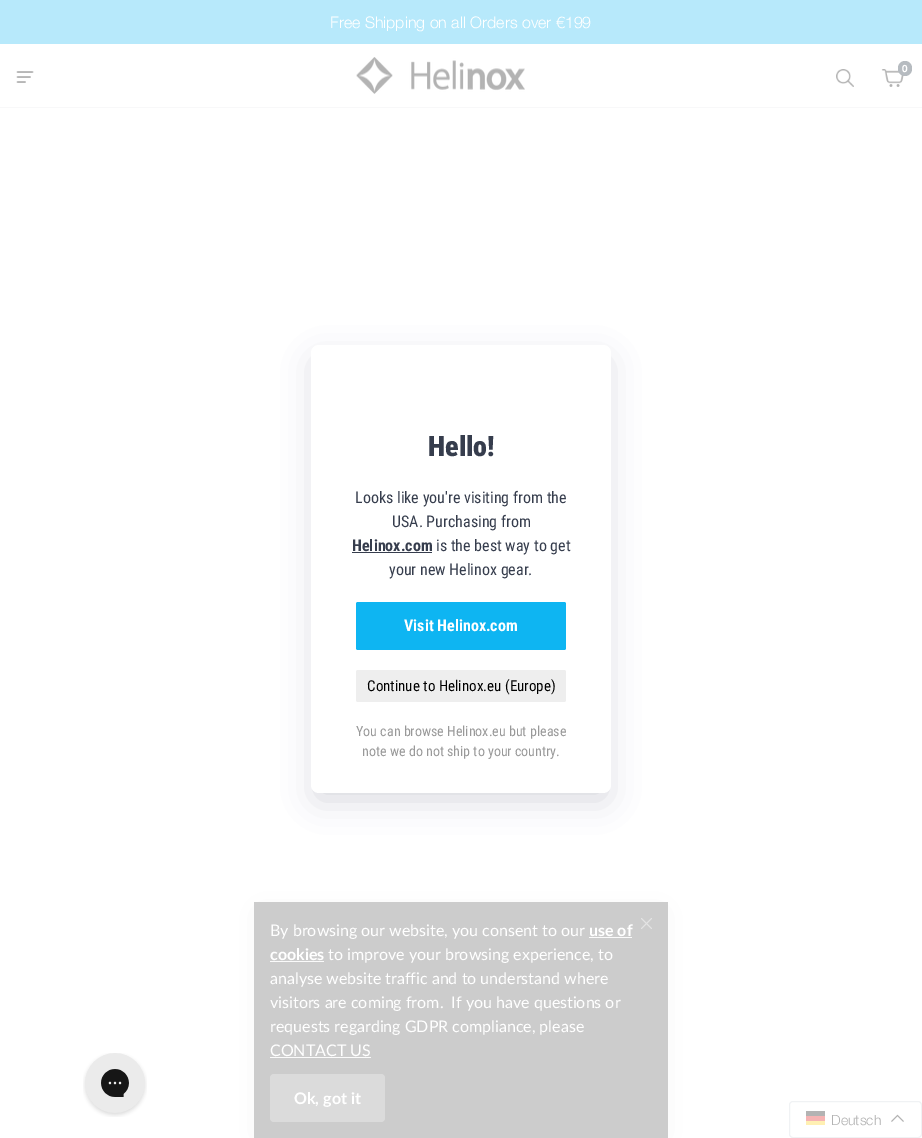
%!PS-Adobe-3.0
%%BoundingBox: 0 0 922 1138
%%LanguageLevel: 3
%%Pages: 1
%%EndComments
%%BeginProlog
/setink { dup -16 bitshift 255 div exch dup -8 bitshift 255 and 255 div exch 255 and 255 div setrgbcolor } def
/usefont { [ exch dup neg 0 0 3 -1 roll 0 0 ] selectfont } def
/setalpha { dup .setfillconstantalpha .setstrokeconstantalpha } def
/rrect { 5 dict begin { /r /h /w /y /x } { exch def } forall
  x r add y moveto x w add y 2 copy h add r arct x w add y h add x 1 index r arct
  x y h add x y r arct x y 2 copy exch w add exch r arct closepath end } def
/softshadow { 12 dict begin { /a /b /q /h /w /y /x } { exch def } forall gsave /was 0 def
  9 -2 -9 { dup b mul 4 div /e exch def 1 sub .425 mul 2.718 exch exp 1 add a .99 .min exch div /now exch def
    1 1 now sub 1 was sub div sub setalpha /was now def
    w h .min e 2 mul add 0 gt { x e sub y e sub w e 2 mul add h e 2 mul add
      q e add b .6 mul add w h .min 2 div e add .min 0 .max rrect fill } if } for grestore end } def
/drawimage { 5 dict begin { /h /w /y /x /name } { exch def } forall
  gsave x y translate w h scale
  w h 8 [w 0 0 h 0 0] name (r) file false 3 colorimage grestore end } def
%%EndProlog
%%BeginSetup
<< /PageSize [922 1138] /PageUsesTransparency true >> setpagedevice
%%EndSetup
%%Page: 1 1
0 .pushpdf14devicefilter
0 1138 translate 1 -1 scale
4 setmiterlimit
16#FFFFFF setink
0 0 922 1138 rectfill
16#B7E9FB setink
0 0 922 44 rectfill
/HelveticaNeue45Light-Light 16 usefont
16#FFFFFF setink
330 28 moveto (Free Shipping on all Orders over €199) show
16#F8F8F9 setink
0 107 922 1 rectfill
(img1.raw) 356 57 169 37 drawimage
(img2.raw) 836 69 18 18 drawimage
(img3.raw) 881 69 23 18 drawimage
16#B6BBC0 setink
898 61 14 15 7 rrect fill
/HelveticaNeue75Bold-Bold 10 usefont
16#FFFFFF setink
902 72 moveto (0) show
(img4.raw) 16 71 18 12 drawimage
16#363D4D setink
316 361 290 438 3 16 0.2 softshadow
16#FFFFFF setink
311 345 300 448 8 rrect fill
/RobotoCondensed-Black 28 usefont
16#363D4D setink
428 456 moveto (Hello!) show
/RobotoCondensed-Regular 16 usefont
355 503 moveto (Looks like you're visiting from the) show
392 527 moveto (USA. Purchasing from) show
/RobotoCondensed-Bold 16 usefont
352 551 moveto (Helinox.com) show
352 552 80 1 rectfill
/RobotoCondensed-Regular 16 usefont
436 551 moveto (is the best way to get) show
389 575 moveto (your new Helinox gear.) show
16#0EB5F2 setink
356 602 210 48 2 rrect fill
/RobotoCondensed-Bold 16 usefont
16#FFFFFF setink
404 631 moveto (Visit Helinox.com) show
16#EEEEEE setink
356 670 210 32 2 rrect fill
/RobotoCondensed-Regular 15 usefont
16#000000 setink
367 691 moveto (Continue to Helinox.eu \(Europe\)) show
/RobotoCondensed-Regular 14 usefont
16#999999 setink
356 736 moveto (You can browse Helinox.eu but please) show
362 756 moveto (note we do not ship to your country.) show
(img5.raw) 83 1053 64 64 drawimage
16#C3C5CA setink
259 911 404 226 0 16 0.2 softshadow
16#CCCCCC setink
254 902 414 236 rectfill
/Lato-Regular 16 usefont
16#FFFFFF setink
270 936 moveto (By browsing our website, you consent to our) show
/Lato-Bold 16 usefont
589 936 moveto (use of) show
16#FAFAFA setink
589 937 43 1 rectfill
16#FFFFFF setink
270 960 moveto (cookies) show
16#FAFAFA setink
270 961 54 1 rectfill
/Lato-Regular 16 usefont
16#FFFFFF setink
[
    [(to improve your browsing experience, to) 328 960]
    [(analyse website traffic and to understand where) 270 984]
    [(visitors are coming from.  If you have questions or) 270 1008]
    [(requests regarding GDPR compliance, please) 270 1032]
    [(CONTACT US) 270 1056]
] { aload pop moveto show } forall
16#FAFAFA setink
270 1057 101 1 rectfill
16#DBDBDB setink
270 1074 115 48 4 rrect fill
/Lato-Bold 16 usefont
16#FFFFFF setink
294 1104 moveto (Ok, got it) show
16#E3E3E3 setink
0.9 setlinewidth
1 setlinecap
1 setlinejoin
641.5 918.5 moveto 651.5 928.5 lineto 651.5 918.5 moveto 641.5 928.5 lineto stroke
16#F0F2F4 setink
1 setlinewidth
0 setlinecap
0 setlinejoin
789.5 1101.5 132 36 3.5 rrect stroke
[
    [806 1121 19 4 16#FFF0B3]
    [806 1111 19 5 16#B3B3B3]
    [806 1116 19 5 16#F5B3B3]
] { aload pop setink rectfill } forall
/HelveticaNeue45Light-Light 14 usefont
16#B3B3B3 setink
831 1125 moveto (Deutsch) show
903.5 1121.5 moveto 897.5 1115.5 lineto 891.5 1121.5 lineto stroke
.poppdf14devicefilter showpage
%%EOF
